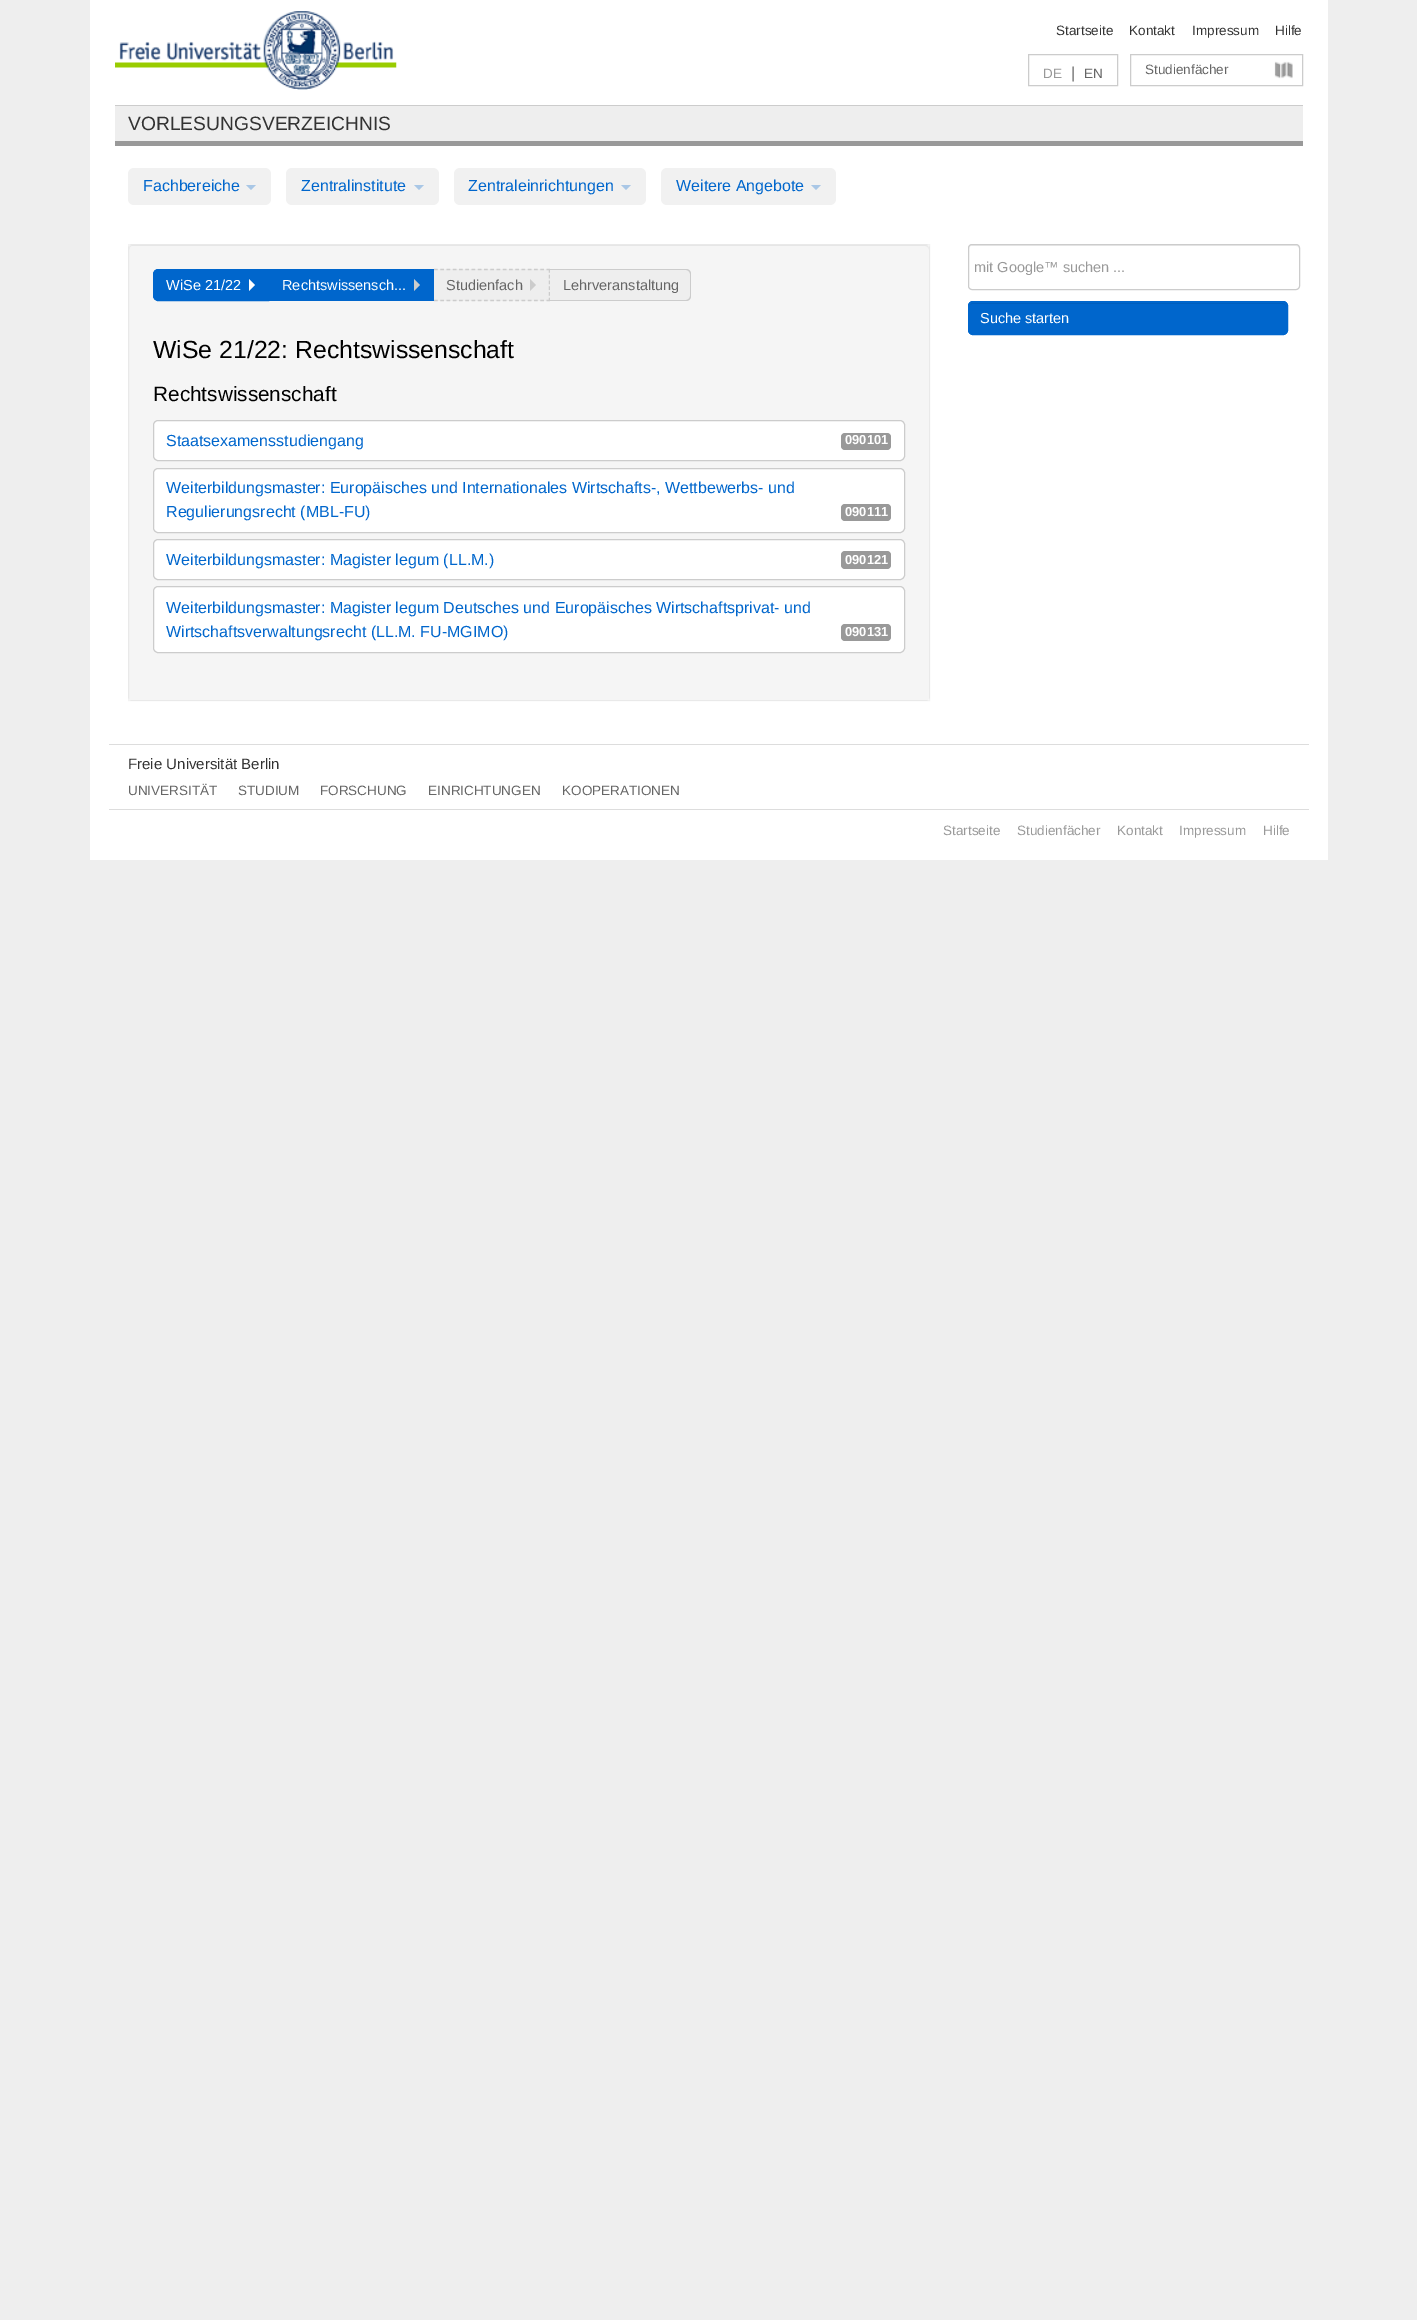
%!PS-Adobe-3.0
%%BoundingBox: 0 0 1417 2320
%%LanguageLevel: 3
%%Pages: 1
%%EndComments
%%BeginProlog
/setink { dup -16 bitshift 255 div exch dup -8 bitshift 255 and 255 div exch 255 and 255 div setrgbcolor } def
/usefont { [ exch dup neg 0 0 3 -1 roll 0 0 ] selectfont } def
/setalpha { dup .setfillconstantalpha .setstrokeconstantalpha } def
/rrect { 5 dict begin { /r /h /w /y /x } { exch def } forall
  x r add y moveto x w add y 2 copy h add r arct x w add y h add x 1 index r arct
  x y h add x y r arct x y 2 copy exch w add exch r arct closepath end } def
/drawimage { 5 dict begin { /h /w /y /x /name } { exch def } forall
  gsave x y translate w h scale
  w h 8 [w 0 0 h 0 0] name (r) file false 3 colorimage grestore end } def
%%EndProlog
%%BeginSetup
<< /PageSize [1417 2320] /PageUsesTransparency true >> setpagedevice
%%EndSetup
%%Page: 1 1
0 .pushpdf14devicefilter
0 2320 translate 1 -1 scale
4 setmiterlimit
16#EEEEEE setink
0 0 1417 2320 rectfill
16#FFFFFF setink
90 0 1238 860 rectfill
(img1.raw) 115 11 282 79 drawimage
/LiberationSans-Regular 13.5 usefont
16#333333 setink
[
    [(Startseite) 1056 35]
    [(Kontakt) 1129 35]
    [(Impressum) 1192 35]
    [(Hilfe) 1275 35]
] { aload pop moveto show } forall
16#CCCCCC setink
1028.5 54.5 89 31 rectstroke
16#999999 setink
1043 78 moveto (DE) show
/LiberationSans-Regular 16 usefont
16#666666 setink
1071 78 moveto (|) show
/LiberationSans-Regular 13.5 usefont
1084 78 moveto (EN) show
16#CCCCCC setink
1130.5 54.5 172 31 rectstroke
(img2.raw) 1274 61 19 18 drawimage
16#666666 setink
1145 74 moveto (Studienfächer) show
[
    [115 106 1188 35 16#EEEEEE]
    [115 105 1188 1 16#CCCCCC]
    [115 141 1188 5 16#999999]
] { aload pop setink rectfill } forall
/LiberationSans-Regular 19.25 usefont
16#333333 setink
128 130 moveto (VORLESUNGSVERZEICHNIS) show
16#F1F1F1 setink
128 168 143 37 6 rrect fill
/LiberationSans-Regular 16 usefont
16#0066CC setink
143 191 moveto (Fachbereiche) show
16#A9C7E6 setink
246 185 moveto 256 185 lineto 251 190 lineto closepath fill
16#F1F1F1 setink
286 168 153 37 6 rrect fill
16#0066CC setink
301 191 moveto (Zentralinstitute) show
16#A9C7E6 setink
414 185 moveto 424 185 lineto 419 190 lineto closepath fill
16#F1F1F1 setink
454 168 192 37 6 rrect fill
16#0066CC setink
468 191 moveto (Zentraleinrichtungen) show
16#A9C7E6 setink
621 185 moveto 631 185 lineto 626 190 lineto closepath fill
16#F1F1F1 setink
661 168 175 37 6 rrect fill
16#0066CC setink
676 191 moveto (Weitere Angebote) show
16#A9C7E6 setink
811 185 moveto 821 185 lineto 816 190 lineto closepath fill
16#F5F5F5 setink
128 244 802 457 5 rrect fill
16#E9E9E9 setink
132 246 moveto 925 246 lineto 927 246 929 248 929 250 curveto 929 247 928 245 925 245 curveto 133 245 lineto 130 245 129 247 129 250 curveto 129 248 130 246 132 246 curveto closepath fill
0.05 setalpha
16#000000 setink
128.5 244.5 801 456 rectstroke
1 setalpha
16#0066CC setink
158 269.5 moveto 268.5 269.5 lineto 268.5 300.5 lineto 158 300.5 lineto 155.5 300.5 153.5 298.5 153.5 296 curveto 153.5 274 lineto 153.5 271.5 155.5 269.5 158 269.5 curveto closepath gsave fill grestore
stroke
/LiberationSans-Regular 14.5 usefont
16#FFFFFF setink
166 290 moveto (WiSe 21/22) show
249 291 moveto 249 279 lineto 255 285 lineto closepath fill
16#0066CC setink
269 269 165 32 rectfill
16#FFFFFF setink
282 290 moveto (Rechtswissensch...) show
16#CCCCCC setink
414 291 moveto 414 279 lineto 420 285 lineto closepath fill
16#EEEEEE setink
434 269 116 32 rectfill
16#CCCCCC setink
1.2 setlinewidth
[3.75 2.5] 0 setdash
434 269.5 moveto 550 269.5 lineto stroke
[3.75 2] 0 setdash
549.5 269 moveto 549.5 301 lineto stroke
[3.75 2.5] 0 setdash
434 300.5 moveto 550 300.5 lineto stroke
16#666666 setink
446 290 moveto (Studienfach) show
16#CCCCCC setink
530 291 moveto 530 279 lineto 536 285 lineto closepath fill
16#EEEEEE setink
550 269 moveto 686 269 lineto 689 269 691 271 691 274 curveto 691 296 lineto 691 299 689 301 686 301 curveto 550 301 lineto closepath fill
16#CCCCCC setink
550 269 moveto 686 269 lineto 689 269 691 271 691 274 curveto 691 296 lineto 691 299 689 301 686 301 curveto 550 301 lineto closepath 550 270 moveto 686 270 lineto 688 270 690 272 690 274 curveto 690 296 lineto 690 298 688 300 686 300 curveto 550 300 lineto closepath eofill
16#666666 setink
563 290 moveto (Lehrveranstaltung) show
/LiberationSans-Regular 24.8 usefont
16#000000 setink
153 358 moveto (WiSe 21/22: Rechtswissenschaft) show
/LiberationSans-Regular 20.75 usefont
153 401 moveto (Rechtswissenschaft) show
16#FFFFFF setink
153.5 420.5 751 40 4.5 rrect gsave fill grestore
16#CCCCCC setink
1 setlinewidth
[] 0 setdash
stroke
/LiberationSans-Regular 16 usefont
16#0066CC setink
166 446 moveto (Staatsexamensstudiengang) show
16#999999 setink
841 433 50 17 4 rrect fill
/LiberationSans-Bold 13 usefont
16#FFFFFF setink
845 444 moveto (090101) show
153.5 468.5 751 64 4.5 rrect gsave fill grestore
16#CCCCCC setink
stroke
/LiberationSans-Regular 16 usefont
16#0066CC setink
166 493 moveto (Weiterbildungsmaster: Europäisches und Internationales Wirtschafts-, Wettbewerbs- und) show
166 517 moveto (Regulierungsrecht \(MBL-FU\)) show
16#999999 setink
841 504 50 17 4 rrect fill
/LiberationSans-Bold 13 usefont
16#FFFFFF setink
845 516 moveto (090111) show
153.5 539.5 751 40 4.5 rrect gsave fill grestore
16#CCCCCC setink
stroke
/LiberationSans-Regular 16 usefont
16#0066CC setink
166 565 moveto (Weiterbildungsmaster: Magister legum \(LL.M.\)) show
16#999999 setink
841 551 50 18 4 rrect fill
/LiberationSans-Bold 13 usefont
16#FFFFFF setink
845 564 moveto (090121) show
153.5 586.5 751 66 4.5 rrect gsave fill grestore
16#CCCCCC setink
stroke
/LiberationSans-Regular 16 usefont
16#0066CC setink
166 613 moveto (Weiterbildungsmaster: Magister legum Deutsches und Europäisches Wirtschaftsprivat- und) show
166 637 moveto (Wirtschaftsverwaltungsrecht \(LL.M. FU-MGIMO\)) show
16#999999 setink
841 624 50 17 4 rrect fill
/LiberationSans-Bold 13 usefont
16#FFFFFF setink
845 636 moveto (090131) show
16#ECECEC setink
971 246 moveto 1296 246 lineto 1298 246 1299 247 1299 249 curveto 1299 248 lineto 1299 246 1298 245 1296 245 curveto 972 245 lineto 970 245 969 246 969 248 curveto 969 249 lineto 969 247 970 246 971 246 curveto closepath fill
16#CCCCCC setink
968.5 244.5 331 45 3.5 rrect stroke
/LiberationSans-Regular 14.5 usefont
16#999999 setink
974 272 moveto (mit Google™ suchen ...) show
16#0066CC setink
968 301 320 34 5 rrect fill
16#005EBD setink
972 304 moveto 1282 304 lineto 1285 304 1286 305 1286 308 curveto 1286 307 lineto 1286 305 1284 303 1282 303 curveto 973 303 lineto 971 303 969 305 969 307 curveto 969 308 lineto 969 305 970 304 972 304 curveto closepath fill
16#0066CC setink
968.5 301.5 319 33 4.5 rrect stroke
16#FFFFFF setink
980 323 moveto (Suche starten) show
16#DDDDDD setink
109 744 1200 1 rectfill
/LiberationSans-Regular 15 usefont
16#333333 setink
128 769 moveto (Freie Universität Berlin) show
/LiberationSans-Regular 13.5 usefont
16#666666 setink
[
    [(UNIVERSITÄT) 128 795]
    [(STUDIUM) 238 795]
    [(FORSCHUNG) 320 795]
    [(EINRICHTUNGEN) 428 795]
    [(KOOPERATIONEN) 562 795]
] { aload pop moveto show } forall
16#DDDDDD setink
109 809 1200 1 rectfill
16#999999 setink
[
    [(Startseite) 943 835]
    [(Studienfächer) 1017 835]
    [(Kontakt) 1117 835]
    [(Impressum) 1179 835]
    [(Hilfe) 1263 835]
] { aload pop moveto show } forall
.poppdf14devicefilter showpage
%%EOF
